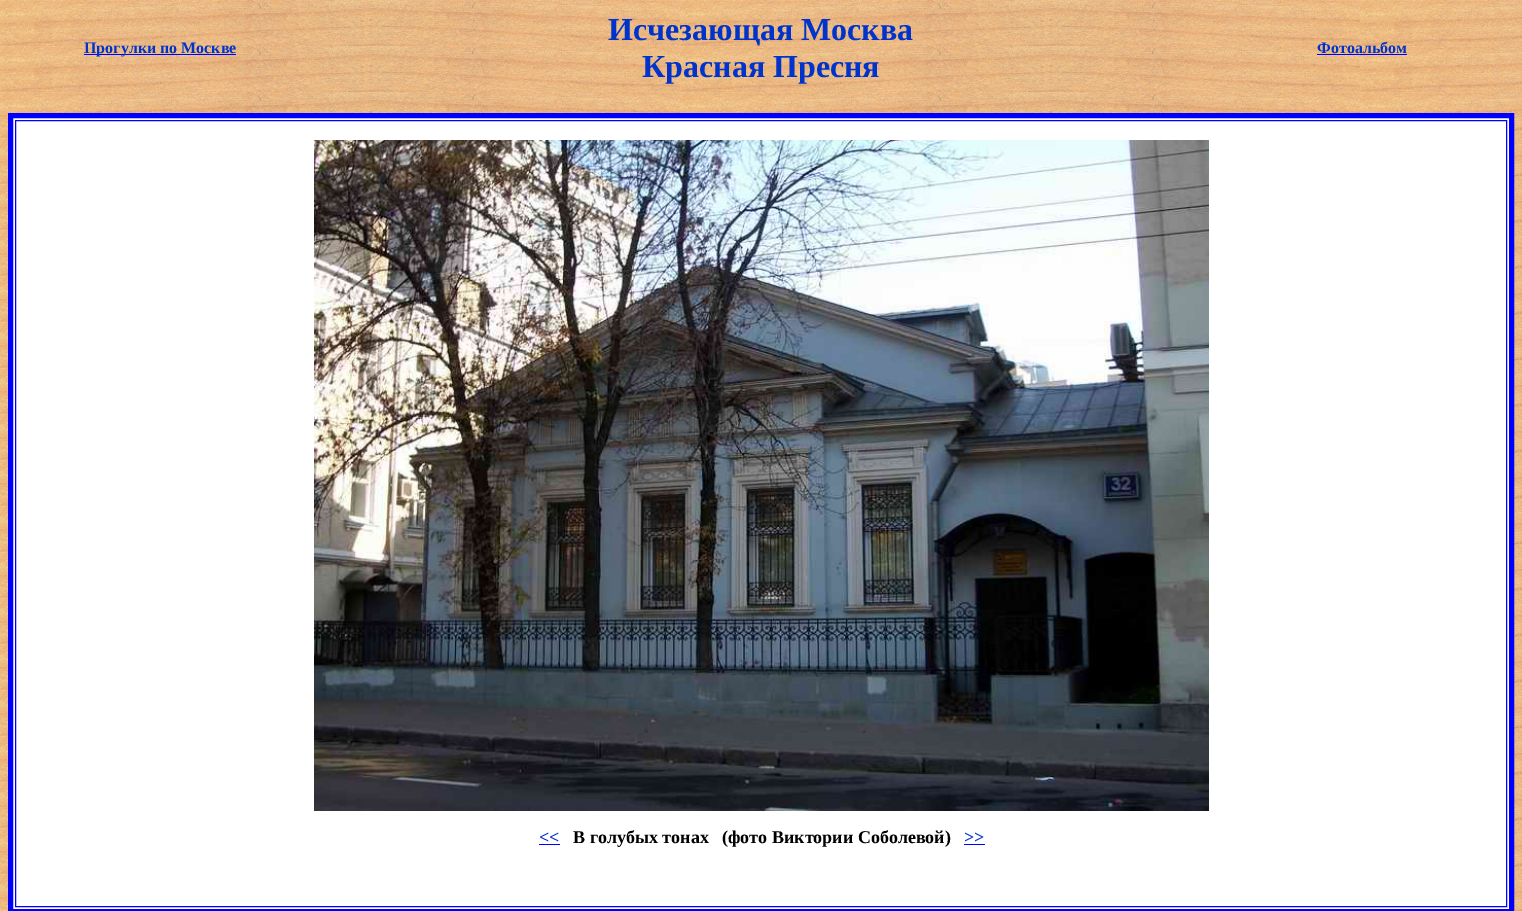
%!PS-Adobe-3.0
%%BoundingBox: 0 0 1522 911
%%LanguageLevel: 3
%%Pages: 1
%%EndComments
%%BeginProlog
/setink { dup -16 bitshift 255 div exch dup -8 bitshift 255 and 255 div exch 255 and 255 div setrgbcolor } def
/usefont { [ exch dup neg 0 0 3 -1 roll 0 0 ] selectfont } def
/drawimage { 5 dict begin { /h /w /y /x /name } { exch def } forall
  gsave x y translate w h scale
  w h 8 [w 0 0 h 0 0] name (r) file false 3 colorimage grestore end } def
%%EndProlog
%%BeginSetup
<< /PageSize [1522 911] >> setpagedevice
%%EndSetup
%%Page: 1 1
0 911 translate 1 -1 scale
4 setmiterlimit
16#FFFFFF setink
0 0 1522 911 rectfill
(img1.raw) 0 0 1522 911 drawimage
16#0000FF setink
84 54 152 1 rectfill
/LiberationSerif-Bold 16 usefont
16#0033CC setink
84 53 moveto (Прогулки по Москве) show
/LiberationSerif-Bold 32 usefont
608 40 moveto (Исчезающая Москва) show
642 77 moveto (Красная Пресня) show
/LiberationSerif-Bold 16 usefont
1317 53 moveto (Фотоальбом) show
16#0000FF setink
1317 54 90 1 rectfill
16#FFFFFF setink
10.5 115.5 moveto 1511.5 115.5 lineto 1511.5 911.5 lineto 10.5 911.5 lineto closepath gsave fill grestore
16#0000FF setink
5 setlinewidth
stroke
1 setlinewidth
15.5 120.5 1491 786 rectstroke
(img2.raw) 314 140 895 671 drawimage
/LiberationSerif-Bold 18 usefont
16#0033CC setink
539 843 moveto (<<) show
16#0000FF setink
539 844 21 1 rectfill
16#000000 setink
573 843 moveto (В голубых тонах   \(фото Виктории Соболевой\)) show
16#0033CC setink
964 843 moveto (>>) show
16#0000FF setink
964 844 21 1 rectfill
showpage
%%EOF
